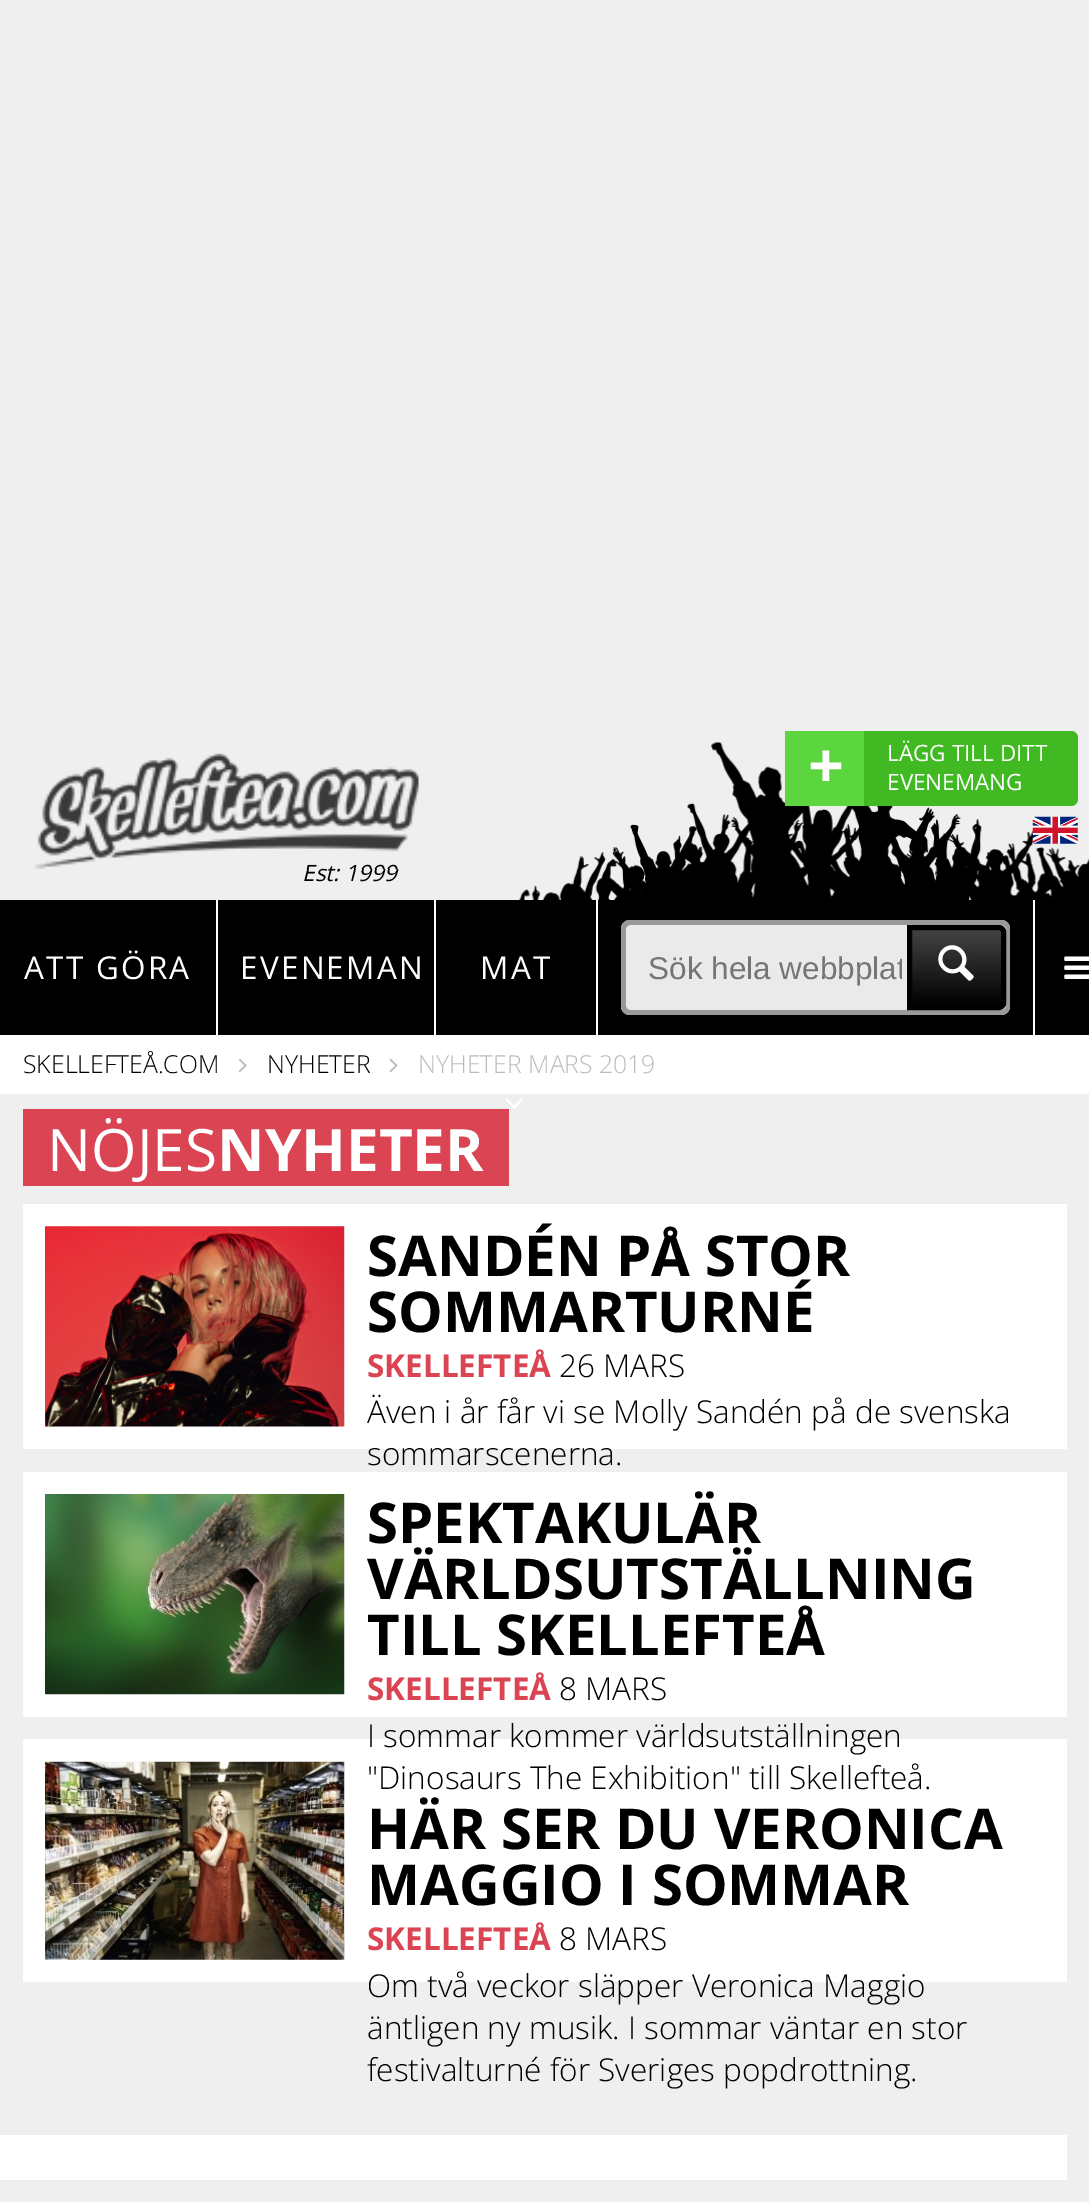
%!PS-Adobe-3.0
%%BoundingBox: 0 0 1089 2202
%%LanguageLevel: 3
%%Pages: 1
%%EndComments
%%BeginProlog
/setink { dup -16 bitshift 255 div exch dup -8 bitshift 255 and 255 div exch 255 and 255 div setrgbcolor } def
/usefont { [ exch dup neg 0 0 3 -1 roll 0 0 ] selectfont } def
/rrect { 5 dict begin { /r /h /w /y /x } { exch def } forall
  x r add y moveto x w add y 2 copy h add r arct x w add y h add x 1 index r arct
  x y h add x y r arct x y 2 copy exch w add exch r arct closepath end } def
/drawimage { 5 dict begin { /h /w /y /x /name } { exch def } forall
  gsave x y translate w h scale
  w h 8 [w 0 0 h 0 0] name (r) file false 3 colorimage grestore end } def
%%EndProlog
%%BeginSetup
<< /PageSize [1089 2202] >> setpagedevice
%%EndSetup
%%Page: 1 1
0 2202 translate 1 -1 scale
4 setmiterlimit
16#EFEFEF setink
0 0 1089 2202 rectfill
(img3.raw) 519 742 570 158 drawimage
16#40B922 setink
785 731 293 75 7 rrect fill
16#5CD63E setink
785 731 79 75 rectfill
/OpenSans-Bold 63 usefont
16#FFFFFF setink
808 788 moveto (+) show
/OpenSans-Regular 22.5 usefont
887 761 moveto (LÄGG TILL DITT) show
887 790 moveto (EVENEMANG) show
(img1.raw) 1032 816 46 28 drawimage
/OpenSans-Italic 22.5 usefont
16#000000 setink
302 881 moveto (Est: 1999) show
(img2.raw) 34 753 385 116 drawimage
0 900 216 135 rectfill
16#FFFFFF setink
216 900 2 135 rectfill
/OpenSans-Regular 31.5 usefont
24 979 moveto 2.25 0 (ATT GÖRA) ashow
16#000000 setink
218 900 815 135 rectfill
16#FFFFFF setink
434 900 2 135 rectfill
240 979 moveto 2.25 0 (EVENEMAN) ashow
596 900 2 135 rectfill
480 979 moveto 2.25 0 (MAT) ashow
(img4.raw) 505 1098 18 11 drawimage
1033 900 2 135 rectfill
16#EAEAEA setink
630 920 moveto 907 920 lineto 907 1015 lineto 630 1015 lineto 625 1015 621 1011 621 1006 curveto 621 929 lineto 621 924 625 920 630 920 curveto closepath fill
16#999999 setink
630 920 moveto 907 920 lineto 907 1015 lineto 630 1015 lineto 625 1015 621 1011 621 1006 curveto 621 929 lineto 621 924 625 920 630 920 curveto closepath 630 925 moveto 907 925 lineto 907 1010 lineto 630 1010 lineto 628 1010 626 1008 626 1006 curveto 626 929 lineto 626 927 628 925 630 925 curveto closepath eofill
gsave
648 950 254 36 rectclip
/LiberationSans-Regular 31.5 usefont
16#757575 setink
648 979 moveto (Sök hela webbplat) show
grestore
16#EAEAEA setink
907 920 moveto 1001 920 lineto 1006 920 1010 924 1010 929 curveto 1010 1006 lineto 1010 1011 1006 1015 1001 1015 curveto 907 1015 lineto closepath fill
16#999999 setink
907 920 moveto 1001 920 lineto 1006 920 1010 924 1010 929 curveto 1010 1006 lineto 1010 1011 1006 1015 1001 1015 curveto 907 1015 lineto closepath 907 925 moveto 1001 925 lineto 1004 925 1006 927 1006 929 curveto 1006 1006 lineto 1006 1008 1004 1010 1001 1010 curveto 907 1010 lineto closepath eofill
gsave
907 925 moveto 999 925 lineto 1003 925 1006 928 1006 932 curveto 1006 1003 lineto 1006 1007 1003 1010 999 1010 curveto 907 1010 lineto closepath clip newpath
gsave 912 929 moveto 1006 929 lineto 1006 1006 lineto 912 1006 lineto closepath clip newpath
<< /ShadingType 2 /ColorSpace /DeviceRGB /Coords [956 929 956 1006] /Extend [true true] /Function << /FunctionType 2 /Domain [0 1] /C0 [0.267 0.267 0.267] /C1 [0 0 0] /N 1 >> >> shfill grestore
grestore
16#000000 setink
5 setlinewidth
909.5 927.5 moveto 999 927.5 lineto 1001.5 927.5 1003.5 929.5 1003.5 932 curveto 1003.5 1003 lineto 1003.5 1005.5 1001.5 1007.5 999 1007.5 curveto 909.5 1007.5 lineto closepath stroke
(img5.raw) 938 945 36 36 drawimage
1035 900 54 135 rectfill
(img6.raw) 1064 956 25 23 drawimage
16#FFFFFF setink
0 1035 1089 59 rectfill
/OpenSans-Light 24.75 usefont
16#000000 setink
23 1073 moveto (SKELLEFTEÅ.COM) show
(img7.raw) 238 1058 9 15 drawimage
267 1073 moveto (NYHETER) show
(img8.raw) 389 1058 9 15 drawimage
16#BBBBBB setink
418 1073 moveto (NYHETER MARS 2019) show
16#DA4453 setink
23 1109 486 77 rectfill
/OpenSans-Regular 58.5 usefont
16#FFFFFF setink
47 1171 moveto (NÖJES) show
/OpenSans-Bold 58.5 usefont
217 1171 moveto (NYHETER) show
23 1204 1044 245 rectfill
(img9.raw) 45 1226 300 201 drawimage
/OpenSans-Bold 56.25 usefont
16#000000 setink
367 1276 moveto (SANDÉN PÅ STOR) show
367 1332 moveto (SOMMARTURNÉ) show
/OpenSans-Bold 31.5 usefont
16#DA4453 setink
367 1377 moveto (SKELLEFTEÅ) show
/OpenSans-Light 31.5 usefont
16#000000 setink
[
    [(26 MARS) 559 1377]
    [(Även i år får vi se Molly Sandén på de svenska) 367 1423]
    [(sommarscenerna.) 367 1465]
] { aload pop moveto show } forall
16#FFFFFF setink
23 1472 1044 245 rectfill
(img10.raw) 45 1494 300 201 drawimage
/OpenSans-Bold 56.25 usefont
16#000000 setink
[
    [(SPEKTAKULÄR) 367 1543]
    [(VÄRLDSUTSTÄLLNING) 367 1599]
    [(TILL SKELLEFTEÅ) 367 1655]
] { aload pop moveto show } forall
/OpenSans-Bold 31.5 usefont
16#DA4453 setink
367 1700 moveto (SKELLEFTEÅ) show
/OpenSans-Light 31.5 usefont
16#000000 setink
559 1700 moveto (8 MARS) show
16#FFFFFF setink
23 1739 1044 243 rectfill
16#000000 setink
367 1747 moveto (I sommar kommer världsutställningen) show
367 1789 moveto ("Dinosaurs The Exhibition" till Skellefteå.) show
(img11.raw) 45 1761 300 199 drawimage
/OpenSans-Bold 56.25 usefont
367 1849 moveto (HÄR SER DU VERONICA) show
367 1905 moveto (MAGGIO I SOMMAR) show
/OpenSans-Bold 31.5 usefont
16#DA4453 setink
367 1950 moveto (SKELLEFTEÅ) show
/OpenSans-Light 31.5 usefont
16#000000 setink
[
    [(8 MARS) 559 1950]
    [(Om två veckor släpper Veronica Maggio) 367 1997]
    [(äntligen ny musik. I sommar väntar en stor) 367 2039]
    [(festivalturné för Sveriges popdrottning.) 367 2081]
] { aload pop moveto show } forall
16#FFFFFF setink
0 2135 1067 45 rectfill
showpage
%%EOF
